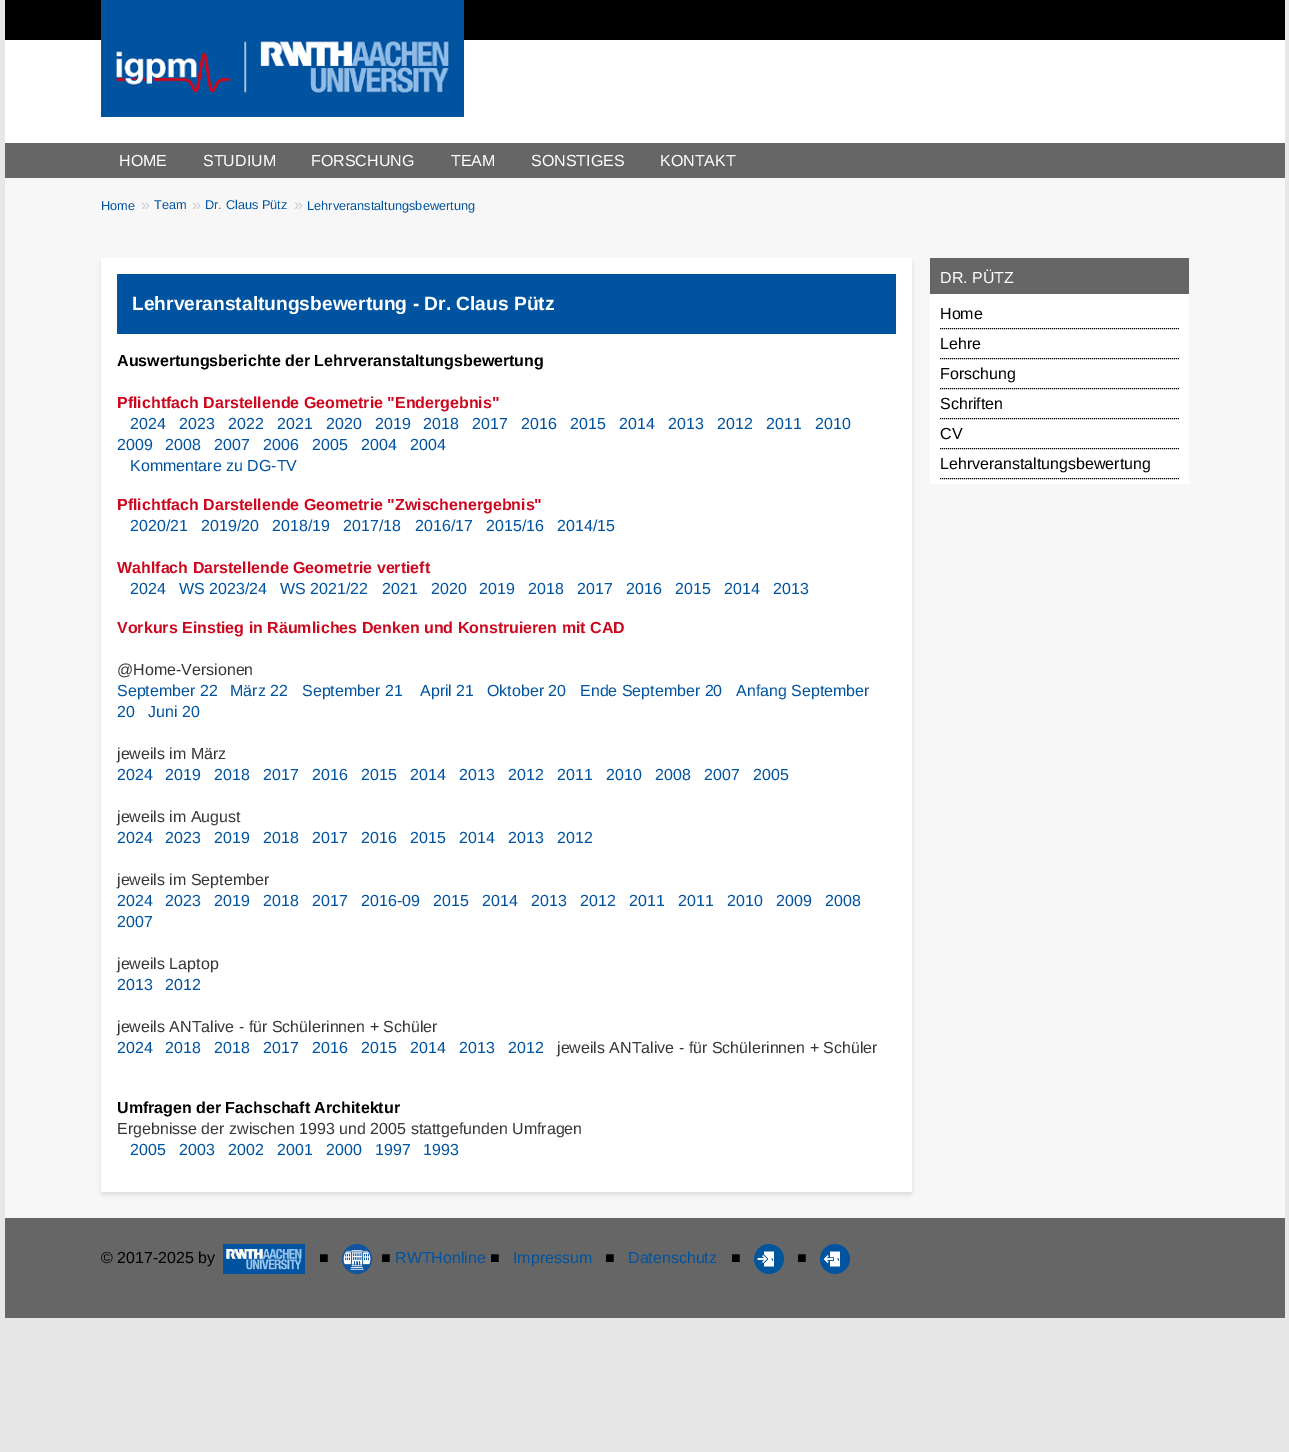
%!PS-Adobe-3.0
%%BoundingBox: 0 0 1289 1452
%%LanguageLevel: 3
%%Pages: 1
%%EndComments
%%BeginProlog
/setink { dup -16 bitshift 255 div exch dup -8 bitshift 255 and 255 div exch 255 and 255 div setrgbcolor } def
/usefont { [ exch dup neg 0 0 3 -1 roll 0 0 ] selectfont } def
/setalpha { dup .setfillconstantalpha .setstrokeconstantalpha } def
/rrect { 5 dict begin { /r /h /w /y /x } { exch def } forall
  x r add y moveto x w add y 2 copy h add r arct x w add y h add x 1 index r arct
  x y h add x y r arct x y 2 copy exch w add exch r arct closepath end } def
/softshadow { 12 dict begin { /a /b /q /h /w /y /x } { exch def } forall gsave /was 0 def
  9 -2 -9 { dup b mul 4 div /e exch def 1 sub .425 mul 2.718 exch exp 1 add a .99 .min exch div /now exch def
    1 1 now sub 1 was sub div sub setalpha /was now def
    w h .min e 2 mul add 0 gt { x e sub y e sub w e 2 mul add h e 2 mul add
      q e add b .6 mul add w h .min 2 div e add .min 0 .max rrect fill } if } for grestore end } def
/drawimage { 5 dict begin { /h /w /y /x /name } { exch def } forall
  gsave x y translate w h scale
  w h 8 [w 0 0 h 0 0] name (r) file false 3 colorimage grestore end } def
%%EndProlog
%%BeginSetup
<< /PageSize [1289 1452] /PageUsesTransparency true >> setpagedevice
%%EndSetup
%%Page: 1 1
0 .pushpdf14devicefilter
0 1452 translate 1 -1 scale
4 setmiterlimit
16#E7E7E7 setink
0 0 1289 1452 rectfill
[
    [5 178 1280 1040 16#F7F7F7]
    [5 0 1280 40 16#000000]
    [101 0 363 40 16#00539F]
    [5 40 1280 103 16#FFFFFF]
] { aload pop setink rectfill } forall
(img1.raw) 101 40 363 77 drawimage
16#666666 setink
5 143 1280 35 rectfill
/LiberationSans-Regular 16 usefont
16#FFFFFF setink
[
    [(HOME) 119 166]
    [(STUDIUM) 203 166]
    [(FORSCHUNG) 311 166]
    [(TEAM) 451 166]
    [(SONSTIGES) 531 166]
    [(KONTAKT) 660 166]
] { aload pop moveto show } forall
/LiberationSans-Regular 12.75 usefont
16#00539F setink
101 210 moveto (Home) show
/LiberationSans-Regular 16 usefont
16#CCCCCC setink
141 210 moveto (») show
/LiberationSans-Regular 12.75 usefont
16#00539F setink
154 209 moveto (Team) show
/LiberationSans-Regular 16 usefont
16#CCCCCC setink
192 210 moveto (») show
/LiberationSans-Regular 12.75 usefont
16#00539F setink
205 209 moveto (Dr. Claus Pütz) show
/LiberationSans-Regular 16 usefont
16#CCCCCC setink
294 210 moveto (») show
/LiberationSans-Regular 12.75 usefont
16#00539F setink
307 210 moveto (Lehrveranstaltungsbewertung) show
16#000000 setink
101 261 811 934 2 2 0.1 softshadow
16#FFFFFF setink
101 258 811 934 2 rrect fill
16#00539F setink
117 274 779 60 rectfill
/LiberationSans-Bold 19.2 usefont
16#FFFFFF setink
132 310 moveto (Lehrveranstaltungsbewertung - Dr. Claus Pütz) show
/LiberationSans-Bold 16 usefont
16#000000 setink
117 366 moveto (Auswertungsberichte der Lehrveranstaltungsbewertung) show
16#CC071E setink
117 408 moveto (Pflichtfach Darstellende Geometrie "Endergebnis") show
/LiberationSans-Regular 16 usefont
16#00539F setink
[
    [(2024) 130 429]
    [(2023) 179 429]
    [(2022) 228 429]
    [(2021) 277 429]
    [(2020) 326 429]
    [(2019) 375 429]
    [(2018) 423 429]
    [(2017) 472 429]
    [(2016) 521 429]
    [(2015) 570 429]
    [(2014) 619 429]
    [(2013) 668 429]
    [(2012) 717 429]
    [(2011) 766 429]
    [(2010) 815 429]
    [(2009) 117 450]
    [(2008) 165 450]
    [(2007) 214 450]
    [(2006) 263 450]
    [(2005) 312 450]
    [(2004) 361 450]
    [(2004) 410 450]
    [(Kommentare zu DG-TV) 130 471]
] { aload pop moveto show } forall
/LiberationSans-Bold 16 usefont
16#CC071E setink
117 510 moveto (Pflichtfach Darstellende Geometrie "Zwischenergebnis") show
/LiberationSans-Regular 16 usefont
16#00539F setink
[
    [(2020/21) 130 531]
    [(2019/20) 201 531]
    [(2018/19) 272 531]
    [(2017/18) 343 531]
    [(2016/17) 415 531]
    [(2015/16) 486 531]
    [(2014/15) 557 531]
] { aload pop moveto show } forall
/LiberationSans-Bold 16 usefont
16#CC071E setink
117 573 moveto (Wahlfach Darstellende Geometrie vertieft) show
/LiberationSans-Regular 16 usefont
16#00539F setink
[
    [(2024) 130 594]
    [(WS 2023/24) 179 594]
    [(WS 2021/22) 280 594]
    [(2021) 382 594]
    [(2020) 431 594]
    [(2019) 479 594]
    [(2018) 528 594]
    [(2017) 577 594]
    [(2016) 626 594]
    [(2015) 675 594]
    [(2014) 724 594]
    [(2013) 773 594]
] { aload pop moveto show } forall
/LiberationSans-Bold 16 usefont
16#CC071E setink
117 633 moveto (Vorkurs Einstieg in Räumliches Denken und Konstruieren mit CAD) show
/LiberationSans-Regular 16 usefont
16#363636 setink
117 675 moveto (@Home-Versionen) show
16#00539F setink
[
    [(September 22) 117 696]
    [(März 22) 230 696]
    [(September 21) 302 696]
    [(April 21) 420 696]
    [(Oktober 20) 487 696]
    [(Ende September 20) 580 696]
    [(Anfang September) 736 696]
    [(20) 117 717]
    [(Juni 20) 148 717]
] { aload pop moveto show } forall
16#363636 setink
117 759 moveto (jeweils im März) show
16#00539F setink
[
    [(2024) 117 780]
    [(2019) 165 780]
    [(2018) 214 780]
    [(2017) 263 780]
    [(2016) 312 780]
    [(2015) 361 780]
    [(2014) 410 780]
    [(2013) 459 780]
    [(2012) 508 780]
    [(2011) 557 780]
    [(2010) 606 780]
    [(2008) 655 780]
    [(2007) 704 780]
    [(2005) 753 780]
] { aload pop moveto show } forall
16#363636 setink
117 822 moveto (jeweils im August) show
16#00539F setink
[
    [(2024) 117 843]
    [(2023) 165 843]
    [(2019) 214 843]
    [(2018) 263 843]
    [(2017) 312 843]
    [(2016) 361 843]
    [(2015) 410 843]
    [(2014) 459 843]
    [(2013) 508 843]
    [(2012) 557 843]
] { aload pop moveto show } forall
16#363636 setink
117 885 moveto (jeweils im September) show
16#00539F setink
[
    [(2024) 117 906]
    [(2023) 165 906]
    [(2019) 214 906]
    [(2018) 263 906]
    [(2017) 312 906]
    [(2016-09) 361 906]
    [(2015) 433 906]
    [(2014) 482 906]
    [(2013) 531 906]
    [(2012) 580 906]
    [(2011) 629 906]
    [(2011) 678 906]
    [(2010) 727 906]
    [(2009) 776 906]
    [(2008) 825 906]
    [(2007) 117 927]
] { aload pop moveto show } forall
16#363636 setink
117 969 moveto (jeweils Laptop) show
16#00539F setink
117 990 moveto (2013) show
165 990 moveto (2012) show
16#363636 setink
117 1032 moveto (jeweils ANTalive - für Schülerinnen + Schüler) show
16#00539F setink
[
    [(2024) 117 1053]
    [(2018) 165 1053]
    [(2018) 214 1053]
    [(2017) 263 1053]
    [(2016) 312 1053]
    [(2015) 361 1053]
    [(2014) 410 1053]
    [(2013) 459 1053]
    [(2012) 508 1053]
] { aload pop moveto show } forall
16#363636 setink
557 1053 moveto (jeweils ANTalive - für Schülerinnen + Schüler) show
/LiberationSans-Bold 16 usefont
16#000000 setink
117 1113 moveto (Umfragen der Fachschaft Architektur) show
/LiberationSans-Regular 16 usefont
16#363636 setink
117 1134 moveto (Ergebnisse der zwischen 1993 und 2005 stattgefunden Umfragen) show
16#00539F setink
[
    [(2005) 130 1155]
    [(2003) 179 1155]
    [(2002) 228 1155]
    [(2001) 277 1155]
    [(2000) 326 1155]
    [(1997) 375 1155]
    [(1993) 423 1155]
] { aload pop moveto show } forall
16#FFFFFF setink
930 294 259 190 rectfill
16#666666 setink
930 258 259 36 rectfill
16#FFFFFF setink
940 283 moveto (DR. PÜTZ) show
16#000000 setink
[1 1] 0 setdash
940 328.5 moveto 1179 328.5 lineto stroke
940 319 moveto (Home) show
940 358.5 moveto 1179 358.5 lineto stroke
940 349 moveto (Lehre) show
940 388.5 moveto 1179 388.5 lineto stroke
940 379 moveto (Forschung) show
940 418.5 moveto 1179 418.5 lineto stroke
940 409 moveto (Schriften) show
940 448.5 moveto 1179 448.5 lineto stroke
940 439 moveto (CV) show
940 478.5 moveto 1179 478.5 lineto stroke
940 469 moveto (Lehrveranstaltungsbewertung) show
16#666666 setink
5 1218 1280 100 rectfill
16#000000 setink
101 1263 moveto (© 2017-2025 by) show
(img2.raw) 223 1244 82 30 drawimage
319 1263 moveto (■) show
(img3.raw) 342 1244 30 30 drawimage
381 1263 moveto (■) show
16#00539F setink
395 1263 moveto (RWTHonline) show
16#000000 setink
490 1263 moveto (■) show
16#00539F setink
513 1263 moveto (Impressum) show
16#000000 setink
605 1263 moveto (■) show
16#00539F setink
628 1263 moveto (Datenschutz) show
16#000000 setink
731 1263 moveto (■) show
(img4.raw) 754 1244 30 30 drawimage
797 1263 moveto (■) show
(img5.raw) 820 1244 30 30 drawimage
.poppdf14devicefilter showpage
%%EOF
